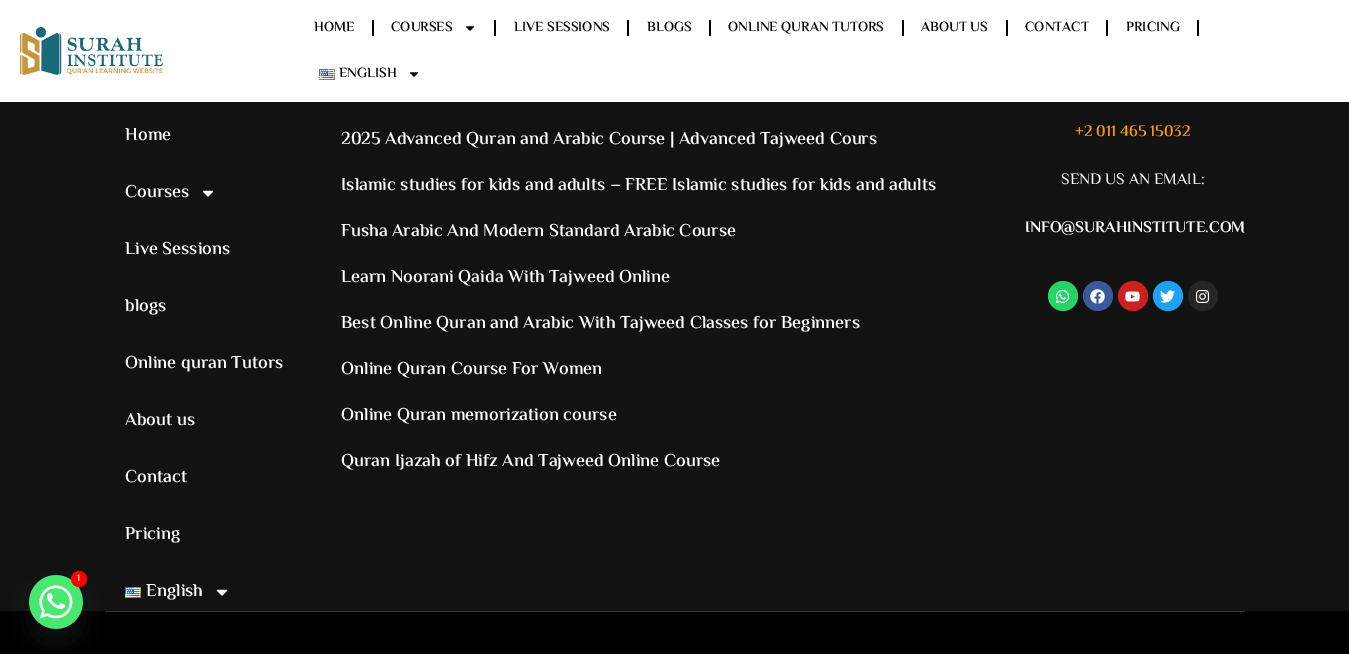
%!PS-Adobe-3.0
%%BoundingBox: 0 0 1349 654
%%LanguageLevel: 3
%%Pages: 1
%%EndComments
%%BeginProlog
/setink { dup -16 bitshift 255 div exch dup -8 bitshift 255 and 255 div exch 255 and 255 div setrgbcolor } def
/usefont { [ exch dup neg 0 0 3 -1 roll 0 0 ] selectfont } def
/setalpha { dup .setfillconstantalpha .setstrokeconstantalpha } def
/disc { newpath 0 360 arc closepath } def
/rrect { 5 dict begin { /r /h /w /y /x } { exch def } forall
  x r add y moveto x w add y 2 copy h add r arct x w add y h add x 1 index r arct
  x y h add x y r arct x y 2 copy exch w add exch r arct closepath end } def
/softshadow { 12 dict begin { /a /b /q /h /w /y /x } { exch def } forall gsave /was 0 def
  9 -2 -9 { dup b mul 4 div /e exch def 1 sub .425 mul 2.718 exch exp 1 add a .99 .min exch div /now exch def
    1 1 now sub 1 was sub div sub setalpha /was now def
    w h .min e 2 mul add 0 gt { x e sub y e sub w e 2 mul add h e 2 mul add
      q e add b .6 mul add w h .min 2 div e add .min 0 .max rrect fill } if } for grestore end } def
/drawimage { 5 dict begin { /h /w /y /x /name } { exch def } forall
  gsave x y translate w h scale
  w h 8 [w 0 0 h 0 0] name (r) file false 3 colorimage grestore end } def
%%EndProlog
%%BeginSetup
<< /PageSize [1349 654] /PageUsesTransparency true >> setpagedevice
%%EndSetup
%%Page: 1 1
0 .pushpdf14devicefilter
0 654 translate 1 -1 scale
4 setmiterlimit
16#121212 setink
0 0 1349 654 rectfill
16#FFFFFF setink
0 0 1349 102 rectfill
(img1.raw) 20 27 144 48 drawimage
/ElMessiri-SemiBold 14 usefont
16#000000 setink
314 31 moveto (HOME) show
372 20 2 16 rectfill
391 31 moveto (COURSES) show
(img2.raw) 466 26 8 5 drawimage
494 20 2 16 rectfill
514 31 moveto (LIVE SESSIONS) show
627 20 2 16 rectfill
647 31 moveto (BLOGS) show
709 20 2 16 rectfill
728 31 moveto (ONLINE QURAN TUTORS) show
902 20 2 16 rectfill
921 31 moveto (ABOUT US) show
1006 20 2 16 rectfill
1025 31 moveto (CONTACT) show
1106 20 2 16 rectfill
1126 31 moveto (PRICING) show
1197 20 2 16 rectfill
(img3.raw) 319 69 16 11 drawimage
339 77 moveto (ENGLISH) show
(img2.raw) 410 72 8 5 drawimage
0 611 1349 43 rectfill
16#333333 setink
105 611 1140 1 rectfill
16#49687E setink
29 591 54 54 27 12 0.16 softshadow
(img4.raw) 29 575 54 54 drawimage
16#FF0000 setink
79 579 8 disc fill
/ElMessiri-Regular 10 usefont
16#FFFFFF setink
77 581 moveto (1) show
/ElMessiri-SemiBold 18 usefont
125 140 moveto (Home) show
125 197 moveto (Courses) show
(img5.raw) 202 190 12 7 drawimage
[
    [(Live Sessions) 125 254]
    [(blogs) 125 311]
    [(Online quran Tutors) 125 368]
    [(About us) 125 425]
    [(Contact) 125 482]
    [(Pricing) 125 539]
] { aload pop moveto show } forall
(img3.raw) 125 587 16 11 drawimage
146 596 moveto (English) show
(img5.raw) 216 589 12 7 drawimage
[
    [(2025 Advanced Quran and Arabic Course | Advanced Tajweed Cours) 341 144]
    [(Islamic studies for kids and adults – FREE Islamic studies for kids and adults) 341 190]
    [(Fusha Arabic And Modern Standard Arabic Course) 341 236]
    [(Learn Noorani Qaida With Tajweed Online) 341 282]
    [(Best Online Quran and Arabic With Tajweed Classes for Beginners) 341 328]
    [(Online Quran Course For Women) 341 374]
    [(Online Quran memorization course) 341 420]
    [(Quran Ijazah of Hifz And Tajweed Online Course) 341 466]
] { aload pop moveto show } forall
/ElMessiri-SemiBold 16 usefont
16#FF9900 setink
1075 136 moveto (+2 011 465 15032) show
/ElMessiri-Regular 16 usefont
16#FFFFFF setink
1061 184 moveto (SEND US AN EMAIL:) show
/ElMessiri-Bold 16 usefont
1025 232 moveto (INFO@SURAHINSTITUTE.COM) show
16#25D366 setink
1063 296 15 disc fill
(img6.raw) 1056 289 14 14 drawimage
16#3B5998 setink
1098 296 15 disc fill
(img7.raw) 1090 289 15 15 drawimage
16#CD201F setink
1133 296 15 disc fill
(img8.raw) 1125 291 15 11 drawimage
16#1DA1F2 setink
1168 296 15 disc fill
(img9.raw) 1160 290 15 13 drawimage
16#262626 setink
1203 296 15 disc fill
(img10.raw) 1196 290 14 13 drawimage
.poppdf14devicefilter showpage
%%EOF
